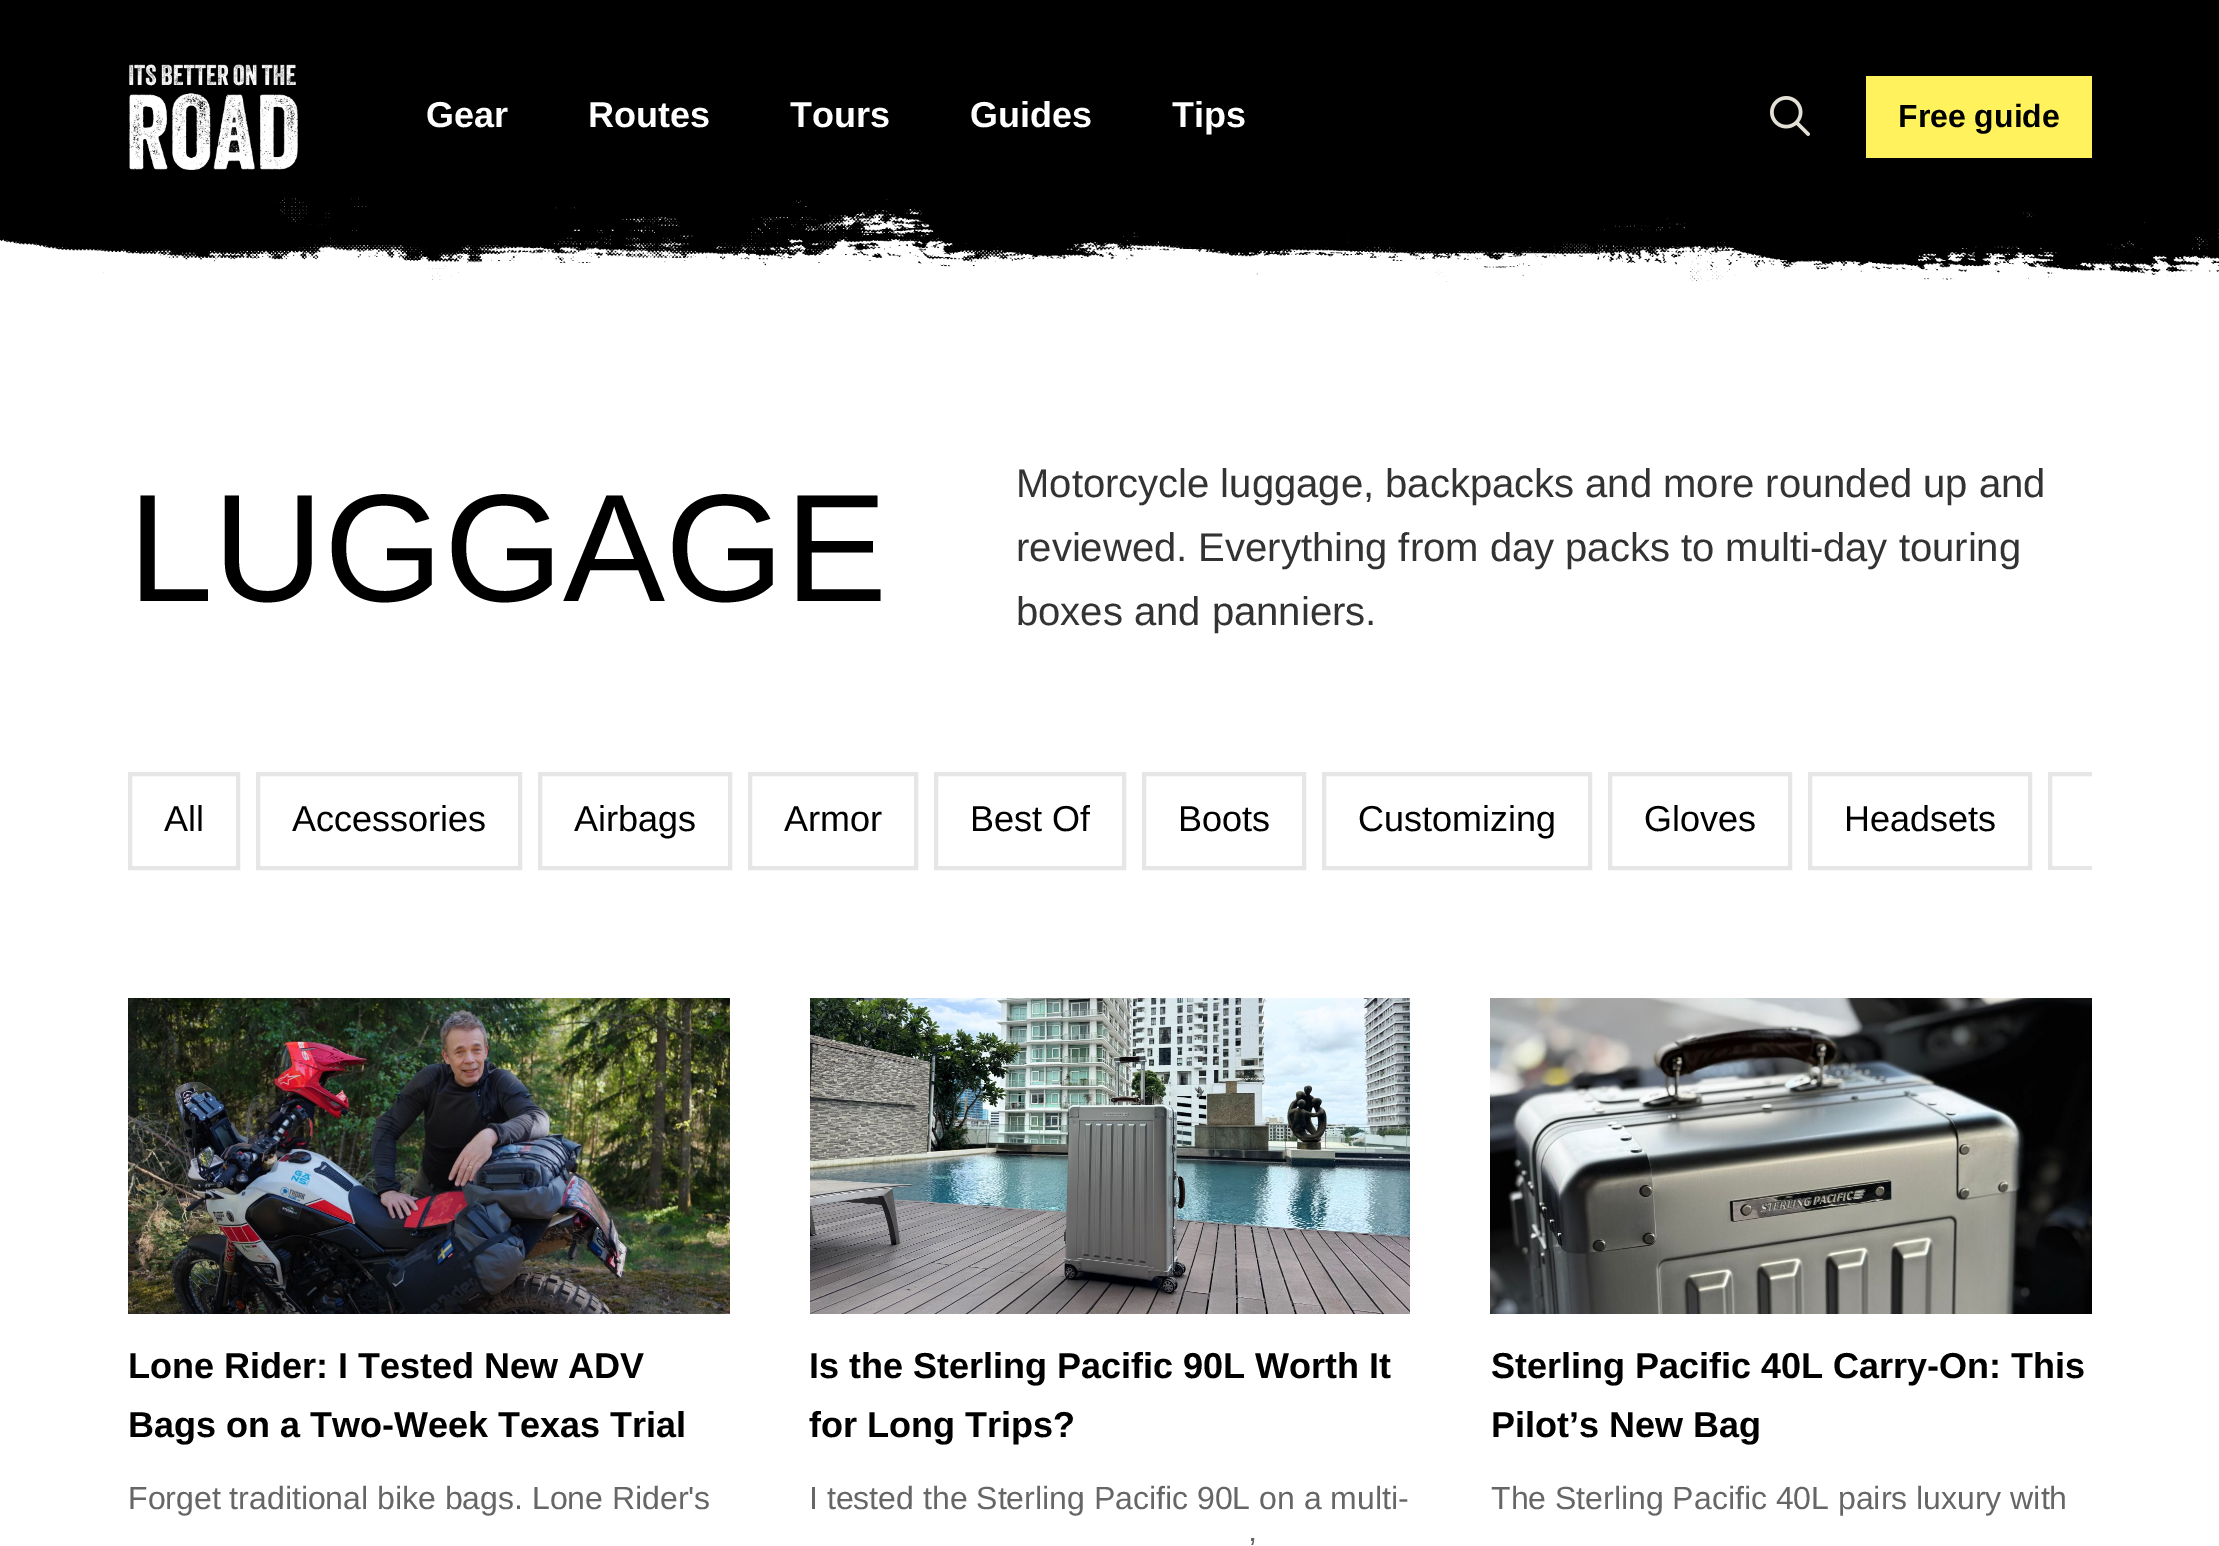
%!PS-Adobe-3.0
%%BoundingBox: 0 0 2219 1546
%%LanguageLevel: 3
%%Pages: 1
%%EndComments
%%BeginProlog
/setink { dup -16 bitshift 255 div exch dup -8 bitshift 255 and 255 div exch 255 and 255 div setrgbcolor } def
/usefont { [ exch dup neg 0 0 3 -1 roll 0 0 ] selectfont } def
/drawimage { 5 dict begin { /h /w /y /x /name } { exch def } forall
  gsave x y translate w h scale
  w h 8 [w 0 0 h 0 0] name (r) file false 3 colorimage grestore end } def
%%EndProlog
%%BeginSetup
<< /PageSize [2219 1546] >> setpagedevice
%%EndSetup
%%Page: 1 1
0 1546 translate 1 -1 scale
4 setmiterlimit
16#FFFFFF setink
0 0 2219 1546 rectfill
16#000000 setink
0 0 2219 194 rectfill
(img1.raw) 129 64 169 106 drawimage
/LiberationSans-Bold 36 usefont
16#FFFFFF setink
[
    [(Gear) 426 127]
    [(Routes) 588 127]
    [(Tours) 790 127]
    [(Guides) 970 127]
    [(Tips) 1172 127]
] { aload pop moveto show } forall
(img2.raw) 1770 96 40 40 drawimage
16#FFF25D setink
1866 76 226 82 rectfill
/LiberationSans-Bold 32 usefont
16#000000 setink
1898 127 moveto (Free guide) show
(img3.raw) 0 194 2219 88 drawimage
/LiberationSans-Regular 153.5 usefont
128 601 moveto (LUGGAGE) show
/LiberationSans-Regular 40 usefont
16#333333 setink
[
    [(Motorcycle luggage, backpacks and more rounded up and) 1016 497]
    [(reviewed. Everything from day packs to multi-day touring) 1016 561]
    [(boxes and panniers.) 1016 625]
] { aload pop moveto show } forall
16#E6E6E6 setink
4 setlinewidth
130 774 108 94 rectstroke
/LiberationSans-Regular 36 usefont
16#000000 setink
164 831 moveto (All) show
16#E6E6E6 setink
258 774 262 94 rectstroke
16#000000 setink
292 831 moveto (Accessories) show
16#E6E6E6 setink
540 774 190 94 rectstroke
16#000000 setink
574 831 moveto (Airbags) show
16#E6E6E6 setink
750 774 166 94 rectstroke
16#000000 setink
784 831 moveto (Armor) show
16#E6E6E6 setink
936 774 188 94 rectstroke
16#000000 setink
970 831 moveto (Best Of) show
16#E6E6E6 setink
1144 774 160 94 rectstroke
16#000000 setink
1178 831 moveto (Boots) show
16#E6E6E6 setink
1324 774 266 94 rectstroke
16#000000 setink
1358 831 moveto (Customizing) show
16#E6E6E6 setink
1610 774 180 94 rectstroke
16#000000 setink
1644 831 moveto (Gloves) show
16#E6E6E6 setink
1810 774 220 94 rectstroke
16#000000 setink
1844 831 moveto (Headsets) show
gsave
128 772 1964 98 rectclip
16#E6E6E6 setink
2050 774 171 94 rectstroke
grestore
(img4.raw) 128 998 602 316 drawimage
/LiberationSans-Bold 36 usefont
128 1378 moveto (Lone Rider: I Tested New ADV) show
128 1437 moveto (Bags on a Two-Week Texas Trial) show
/LiberationSans-Regular 32 usefont
16#666666 setink
128 1509 moveto (Forget traditional bike bags. Lone Rider's) show
(img5.raw) 810 998 600 316 drawimage
/LiberationSans-Bold 36 usefont
16#000000 setink
809 1378 moveto (Is the Sterling Pacific 90L Worth It) show
809 1437 moveto (for Long Trips?) show
/LiberationSans-Regular 32 usefont
16#666666 setink
809 1509 moveto (I tested the Sterling Pacific 90L on a multi-) show
1249 1560 moveto (’) show
(img6.raw) 1490 998 602 316 drawimage
/LiberationSans-Bold 36 usefont
16#000000 setink
1491 1378 moveto (Sterling Pacific 40L Carry-On: This) show
1491 1437 moveto (Pilot’s New Bag) show
/LiberationSans-Regular 32 usefont
16#666666 setink
1491 1509 moveto (The Sterling Pacific 40L pairs luxury with) show
showpage
%%EOF
